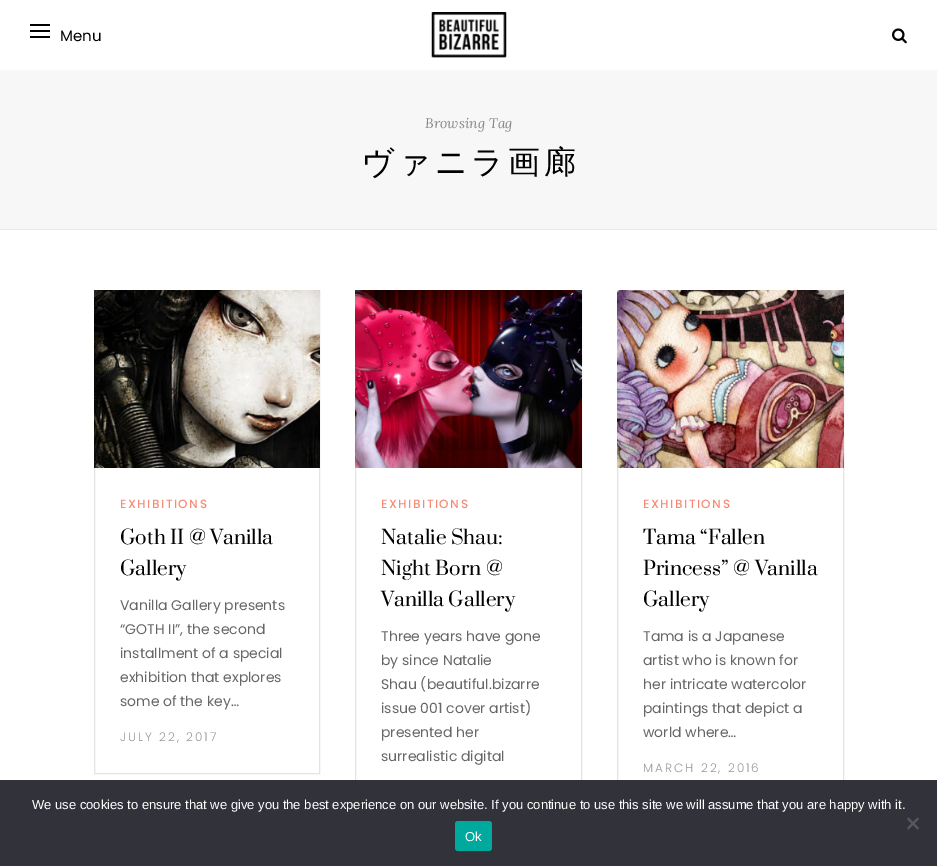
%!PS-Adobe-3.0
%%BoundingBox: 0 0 937 866
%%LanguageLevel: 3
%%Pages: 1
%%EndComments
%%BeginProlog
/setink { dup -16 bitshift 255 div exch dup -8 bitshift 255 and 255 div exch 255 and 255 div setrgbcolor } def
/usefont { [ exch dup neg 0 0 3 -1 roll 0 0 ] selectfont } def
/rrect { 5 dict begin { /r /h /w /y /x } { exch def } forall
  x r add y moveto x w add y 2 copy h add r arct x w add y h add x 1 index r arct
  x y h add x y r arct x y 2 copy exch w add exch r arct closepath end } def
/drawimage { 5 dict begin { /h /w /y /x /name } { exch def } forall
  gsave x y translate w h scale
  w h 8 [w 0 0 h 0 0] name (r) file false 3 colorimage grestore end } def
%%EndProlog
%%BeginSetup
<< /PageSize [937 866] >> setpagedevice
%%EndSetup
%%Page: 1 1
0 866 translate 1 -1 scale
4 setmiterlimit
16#FFFFFF setink
0 0 937 866 rectfill
[
    [30 24 20 2 16#000000]
    [30 36 20 2 16#000000]
    [30 30 20 2 16#000000]
] { aload pop setink rectfill } forall
/Poppins-Regular 15 usefont
60 41 moveto (Menu) show
(img1.raw) 431 12 76 46 drawimage
(img2.raw) 892 28 15 16 drawimage
16#F7F7F7 setink
0 70 937 159 rectfill
16#EAEAEA setink
0 229 937 1 rectfill
/Lora-Italic 14 usefont
16#888888 setink
425 128 moveto (Browsing Tag) show
/WenQuanYiZenHei-Medium 32 usefont
16#000000 setink
361 173 moveto 4 0 (ヴァニラ画廊) ashow
16#E4E4E4 setink
94.5 290.5 225 483 rectstroke
(img3.raw) 94 290 226 178 drawimage
/Poppins-Medium 12 usefont
16#F78A74 setink
120 508 moveto 1.5 0 (EXHIBITIONS) ashow
/Prata-Regular 19 usefont
16#000000 setink
120 544 moveto (Goth II @ Vanilla) show
120 575 moveto (Gallery) show
/Poppins-Regular 14 usefont
16#666666 setink
[
    [(Vanilla Gallery presents) 120 610]
    [(“GOTH II”, the second) 120 634]
    [(installment of a special) 120 658]
    [(exhibition that explores) 120 682]
    [(some of the key…) 120 706]
] { aload pop moveto show } forall
/Poppins-Light 12 usefont
16#999999 setink
120 741 moveto 2 0 (JULY 22, 2017) ashow
16#E4E4E4 setink
355.5 290.5 226 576 rectstroke
(img4.raw) 355 290 227 178 drawimage
/Poppins-Medium 12 usefont
16#F78A74 setink
381 508 moveto 1.5 0 (EXHIBITIONS) ashow
/Prata-Regular 19 usefont
16#000000 setink
[
    [(Natalie Shau:) 381 544]
    [(Night Born @) 381 575]
    [(Vanilla Gallery) 381 606]
] { aload pop moveto show } forall
/Poppins-Regular 14 usefont
16#666666 setink
[
    [(Three years have gone) 381 641]
    [(by since Natalie) 381 665]
    [(Shau \(beautiful.bizarre) 381 689]
    [(issue 001 cover artist\)) 381 713]
    [(presented her) 381 737]
    [(surrealistic digital) 381 761]
] { aload pop moveto show } forall
16#E4E4E4 setink
617.5 290.5 226 514 rectstroke
(img5.raw) 617 290 227 178 drawimage
/Poppins-Medium 12 usefont
16#F78A74 setink
643 508 moveto 1.5 0 (EXHIBITIONS) ashow
/Prata-Regular 19 usefont
16#000000 setink
[
    [(Tama “Fallen) 643 544]
    [(Princess” @ Vanilla) 643 575]
    [(Gallery) 643 606]
] { aload pop moveto show } forall
/Poppins-Regular 14 usefont
16#666666 setink
[
    [(Tama is a Japanese) 643 641]
    [(artist who is known for) 643 665]
    [(her intricate watercolor) 643 689]
    [(paintings that depict a) 643 713]
    [(world where…) 643 737]
] { aload pop moveto show } forall
/Poppins-Light 12 usefont
16#999999 setink
643 772 moveto 2 0 (MARCH 22, 2016) ashow
16#32323A setink
0 780 937 86 rectfill
/LiberationSans-Regular 13 usefont
16#FFFFFF setink
32 809 moveto (We use cookies to ensure that we give you the best experience on our website. If you continue to use this site we will assume that you are happy with it.) show
16#59595D setink
917.5 817.5 moveto 919 819 lineto 908.5 829.5 lineto 907 828 lineto closepath fill
907 819 moveto 908.5 817.5 lineto 919 828 lineto 917.5 829.5 lineto closepath fill
16#00A99D setink
455 821 37 30 3 rrect fill
16#FFFFFF setink
465 841 moveto (Ok) show
showpage
%%EOF
